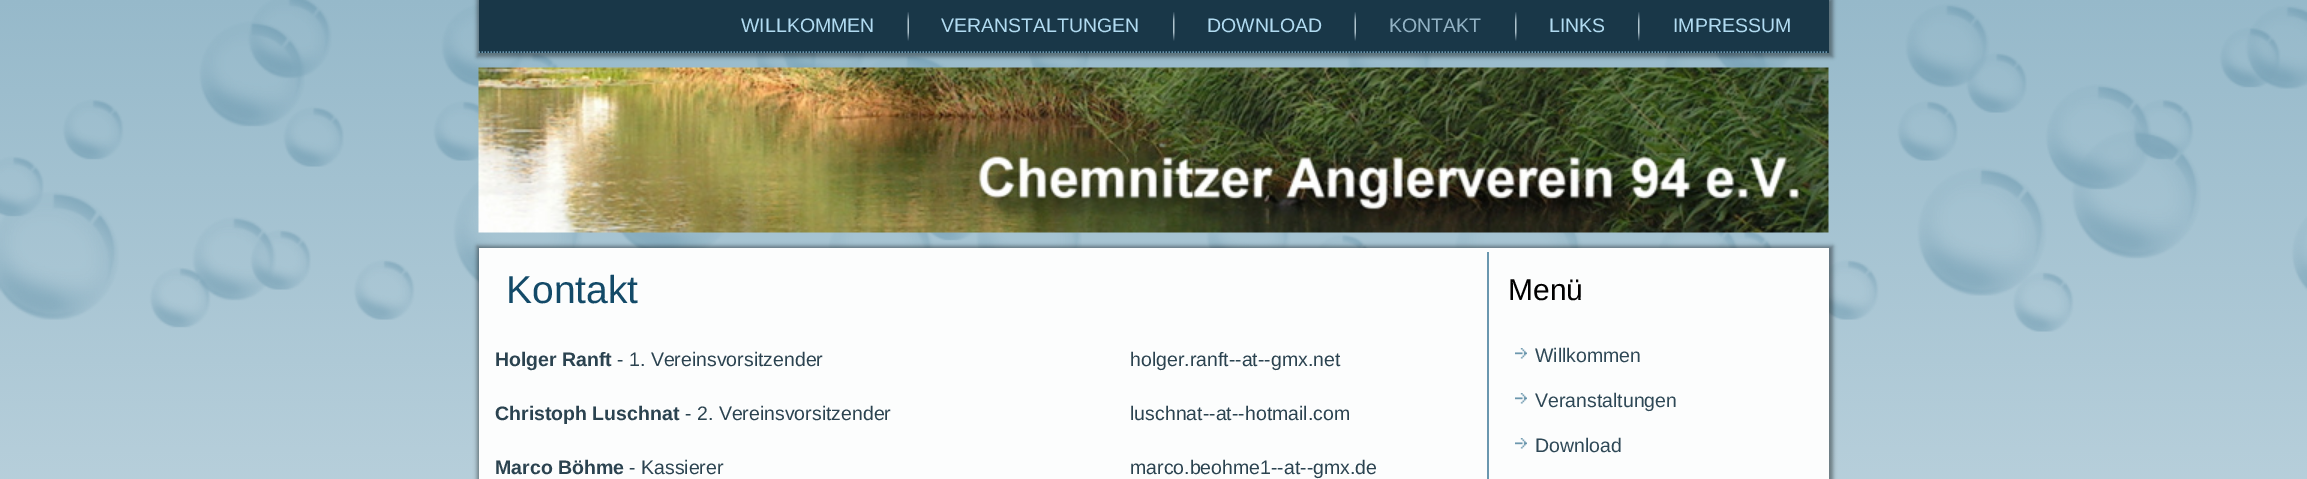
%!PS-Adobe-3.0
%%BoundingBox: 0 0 2307 479
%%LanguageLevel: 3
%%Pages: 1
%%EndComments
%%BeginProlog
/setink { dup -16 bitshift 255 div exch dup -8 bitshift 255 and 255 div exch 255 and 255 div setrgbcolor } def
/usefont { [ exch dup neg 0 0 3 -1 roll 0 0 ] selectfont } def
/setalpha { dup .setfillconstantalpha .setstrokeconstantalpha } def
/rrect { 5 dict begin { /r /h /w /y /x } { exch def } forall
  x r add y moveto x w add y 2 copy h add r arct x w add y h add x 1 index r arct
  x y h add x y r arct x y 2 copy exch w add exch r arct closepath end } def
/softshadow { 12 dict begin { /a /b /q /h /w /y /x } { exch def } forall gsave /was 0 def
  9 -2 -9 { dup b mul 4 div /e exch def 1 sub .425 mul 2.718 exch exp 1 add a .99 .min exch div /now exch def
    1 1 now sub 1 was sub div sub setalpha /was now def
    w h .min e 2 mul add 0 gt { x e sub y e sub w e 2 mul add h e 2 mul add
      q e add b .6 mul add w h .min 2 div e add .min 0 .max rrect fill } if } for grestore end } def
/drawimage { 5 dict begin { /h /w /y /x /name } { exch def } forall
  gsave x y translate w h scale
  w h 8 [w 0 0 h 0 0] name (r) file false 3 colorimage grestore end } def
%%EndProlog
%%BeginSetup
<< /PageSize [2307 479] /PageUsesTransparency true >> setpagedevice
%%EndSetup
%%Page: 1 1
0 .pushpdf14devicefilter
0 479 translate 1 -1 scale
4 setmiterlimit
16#FFFFFF setink
0 0 2307 479 rectfill
(img1.raw) 0 0 2307 479 drawimage
16#000000 setink
477 -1 1356 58 0 2 0.4 softshadow
16#193748 setink
479 0 1350 53 rectfill
16#6A97AF setink
1.5 setlinewidth
[1.5 1.5] 0 setdash
478.5 52 moveto 1828.5 52 lineto stroke
/LiberationSans-Regular 19.5 usefont
16#B1DBF1 setink
741 32 moveto (WILLKOMMEN) show
(img2.raw) 907 12 2 29 drawimage
941 32 moveto (VERANSTALTUNGEN) show
(img3.raw) 1173 12 2 29 drawimage
1207 32 moveto (DOWNLOAD) show
(img2.raw) 1354 12 2 29 drawimage
16#92B2C4 setink
1389 32 moveto (KONTAKT) show
(img3.raw) 1515 12 2 29 drawimage
16#B1DBF1 setink
1549 32 moveto (LINKS) show
(img3.raw) 1638 12 2 29 drawimage
1673 32 moveto (IMPRESSUM) show
(img4.raw) 478 67 1351 166 drawimage
16#000000 setink
477 246 1356 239 0 2 0.4 softshadow
16#FCFDFD setink
479 248 1350 231 rectfill
/LiberationSans-Regular 39 usefont
16#134A68 setink
506 303 moveto (Kontakt) show
/LiberationSans-Bold 19.5 usefont
16#2B4350 setink
495 366 moveto (Holger Ranft) show
/LiberationSans-Regular 19.5 usefont
617 366 moveto (- 1. Vereinsvorsitzender) show
/LiberationSans-Bold 19.5 usefont
495 420 moveto (Christoph Luschnat) show
/LiberationSans-Regular 19.5 usefont
685 420 moveto (- 2. Vereinsvorsitzender) show
/LiberationSans-Bold 19.5 usefont
495 474 moveto (Marco Böhme) show
/LiberationSans-Regular 19.5 usefont
[
    [(- Kassierer) 629 474]
    [(holger.ranft--at--gmx.net) 1130 366]
    [(luschnat--at--hotmail.com) 1130 420]
    [(marco.beohme1--at--gmx.de) 1130 474]
] { aload pop moveto show } forall
16#6A97AF setink
1487 252 2 227 rectfill
/LiberationSans-Regular 30 usefont
16#000000 setink
1508 300 moveto (Menü) show
(img5.raw) 1515 348 12 11 drawimage
/LiberationSans-Regular 19.5 usefont
16#2E4856 setink
1535 362 moveto (Willkommen) show
(img5.raw) 1515 393 12 11 drawimage
1535 407 moveto (Veranstaltungen) show
(img5.raw) 1515 438 12 11 drawimage
1535 452 moveto (Download) show
.poppdf14devicefilter showpage
%%EOF
